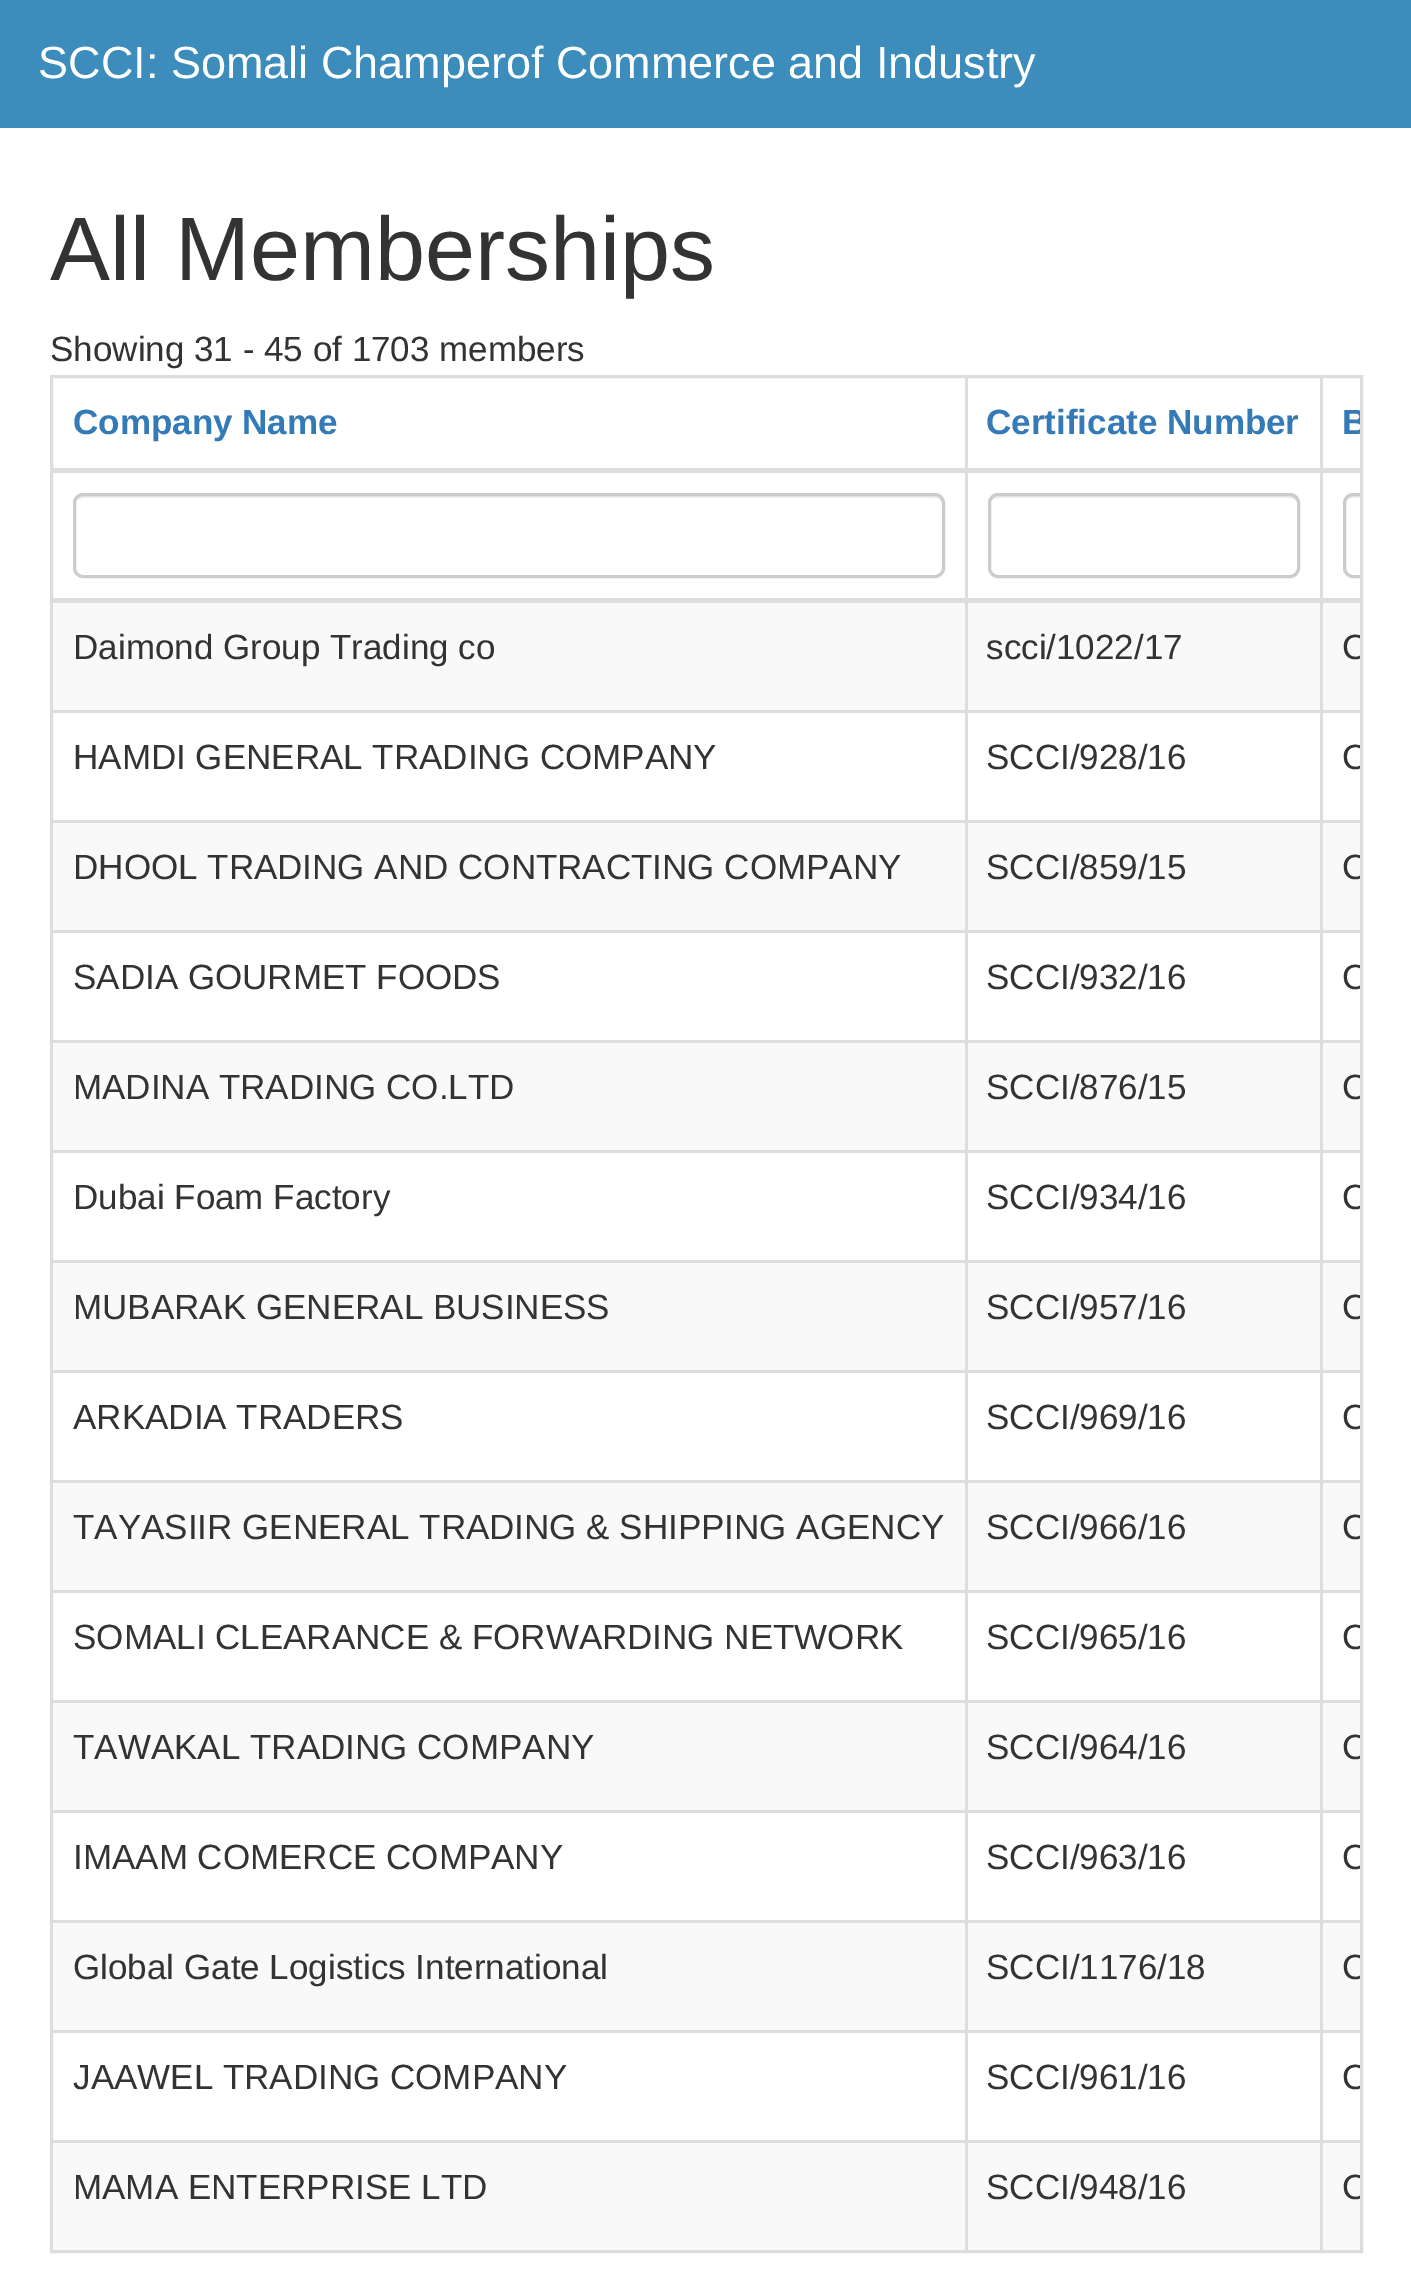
%!PS-Adobe-3.0
%%BoundingBox: 0 0 1411 2284
%%LanguageLevel: 3
%%Pages: 1
%%EndComments
%%BeginProlog
/setink { dup -16 bitshift 255 div exch dup -8 bitshift 255 and 255 div exch 255 and 255 div setrgbcolor } def
/usefont { [ exch dup neg 0 0 3 -1 roll 0 0 ] selectfont } def
/rrect { 5 dict begin { /r /h /w /y /x } { exch def } forall
  x r add y moveto x w add y 2 copy h add r arct x w add y h add x 1 index r arct
  x y h add x y r arct x y 2 copy exch w add exch r arct closepath end } def
%%EndProlog
%%BeginSetup
<< /PageSize [1411 2284] >> setpagedevice
%%EndSetup
%%Page: 1 1
0 2284 translate 1 -1 scale
4 setmiterlimit
16#FFFFFF setink
0 0 1411 2284 rectfill
16#3C8DBC setink
0 0 1411 128 rectfill
/LiberationSans-Regular 45 usefont
16#FFFFFF setink
38 78 moveto (SCCI: Somali Champerof Commerce and Industry) show
/LiberationSans-Regular 90 usefont
16#333333 setink
50 280 moveto (All Memberships) show
/LiberationSans-Regular 35 usefont
50 361 moveto (Showing 31 - 45 of 1703 members) show
16#DDDDDD setink
3 setlinewidth
51.5 376.5 1310 1875 rectstroke
/LiberationSans-Bold 35 usefont
16#337AB7 setink
73 434 moveto (Company Name) show
986 434 moveto (Certificate Number) show
[
    [53 603 1307 107 16#F9F9F9]
    [1320 710 40 3 16#DDDDDD]
    [1320 820 40 3 16#DDDDDD]
    [53 823 1307 107 16#F9F9F9]
    [1320 930 40 3 16#DDDDDD]
    [1320 1040 40 3 16#DDDDDD]
    [53 1043 1307 107 16#F9F9F9]
    [1320 1150 40 3 16#DDDDDD]
    [1320 1260 40 3 16#DDDDDD]
    [53 1263 1307 107 16#F9F9F9]
    [1320 1370 40 3 16#DDDDDD]
    [1320 1480 40 3 16#DDDDDD]
    [53 1483 1307 107 16#F9F9F9]
    [1320 1590 40 3 16#DDDDDD]
    [1320 1700 40 3 16#DDDDDD]
    [53 1703 1307 107 16#F9F9F9]
    [1320 1810 40 3 16#DDDDDD]
    [1320 1920 40 3 16#DDDDDD]
    [53 1923 1307 107 16#F9F9F9]
    [1320 2030 40 3 16#DDDDDD]
    [1320 2140 40 3 16#DDDDDD]
    [53 2143 1307 107 16#F9F9F9]
    [1320 2140 3 110 16#DDDDDD]
    [965 2140 358 3 16#DDDDDD]
    [1320 2030 3 113 16#DDDDDD]
    [965 2030 358 3 16#DDDDDD]
    [1320 1920 3 113 16#DDDDDD]
    [965 1920 358 3 16#DDDDDD]
    [1320 1810 3 113 16#DDDDDD]
    [965 1810 358 3 16#DDDDDD]
    [1320 1700 3 113 16#DDDDDD]
    [965 1700 358 3 16#DDDDDD]
    [1320 1590 3 113 16#DDDDDD]
    [965 1590 358 3 16#DDDDDD]
    [1320 1480 3 113 16#DDDDDD]
    [965 1480 358 3 16#DDDDDD]
    [1320 1370 3 113 16#DDDDDD]
    [965 1370 358 3 16#DDDDDD]
    [1320 1260 3 113 16#DDDDDD]
    [965 1260 358 3 16#DDDDDD]
    [1320 1150 3 113 16#DDDDDD]
    [965 1150 358 3 16#DDDDDD]
    [1320 1040 3 113 16#DDDDDD]
    [965 1040 358 3 16#DDDDDD]
    [1320 930 3 113 16#DDDDDD]
    [965 930 358 3 16#DDDDDD]
    [1320 820 3 113 16#DDDDDD]
    [965 820 358 3 16#DDDDDD]
    [1320 710 3 113 16#DDDDDD]
    [965 710 358 3 16#DDDDDD]
    [965 2140 3 110 16#DDDDDD]
    [53 2140 915 3 16#DDDDDD]
    [965 2030 3 113 16#DDDDDD]
    [53 2030 915 3 16#DDDDDD]
    [965 1920 3 113 16#DDDDDD]
    [53 1920 915 3 16#DDDDDD]
    [965 1810 3 113 16#DDDDDD]
    [53 1810 915 3 16#DDDDDD]
    [965 1700 3 113 16#DDDDDD]
    [53 1700 915 3 16#DDDDDD]
    [965 1590 3 113 16#DDDDDD]
    [53 1590 915 3 16#DDDDDD]
    [965 1480 3 113 16#DDDDDD]
    [53 1480 915 3 16#DDDDDD]
    [965 1370 3 113 16#DDDDDD]
    [53 1370 915 3 16#DDDDDD]
    [965 1260 3 113 16#DDDDDD]
    [53 1260 915 3 16#DDDDDD]
    [965 1150 3 113 16#DDDDDD]
    [53 1150 915 3 16#DDDDDD]
    [965 1040 3 113 16#DDDDDD]
    [53 1040 915 3 16#DDDDDD]
    [965 930 3 113 16#DDDDDD]
    [53 930 915 3 16#DDDDDD]
    [965 820 3 113 16#DDDDDD]
    [53 820 915 3 16#DDDDDD]
    [965 710 3 113 16#DDDDDD]
    [53 710 915 3 16#DDDDDD]
    [965 378 3 335 16#DDDDDD]
    [1320 378 3 335 16#DDDDDD]
    [53 468 1307 5 16#DDDDDD]
] { aload pop setink rectfill } forall
gsave
53 378 1307 1872 rectclip
16#337AB7 setink
1342 434 moveto (B) show
grestore
53 598 1307 5 rectfill
gsave
53 378 1307 1872 rectclip
16#ECECEC setink
1352 498 moveto 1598 498 lineto 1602 498 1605 501 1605 505 curveto 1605 503 lineto 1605 499 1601 495 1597 495 curveto 1353 495 lineto 1349 495 1345 499 1345 503 curveto 1345 505 lineto 1345 501 1348 498 1352 498 curveto closepath fill
16#CCCCCC setink
1344.5 494.5 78 82 8.5 rrect stroke
grestore
16#ECECEC setink
82 498 moveto 935 498 lineto 939 498 942 501 942 505 curveto 942 571 lineto 943 570 943 568 943 567 curveto 943 503 lineto 943 499 939 495 935 495 curveto 83 495 lineto 79 495 75 499 75 503 curveto 75 505 lineto 75 501 78 498 82 498 curveto closepath fill
16#CCCCCC setink
74.5 494.5 869 82 8.5 rrect stroke
16#ECECEC setink
998 498 moveto 1290 498 lineto 1294 498 1298 501 1298 505 curveto 1298 501 1297 496 1292 495 curveto 998 495 lineto 992 495 990 500 990 505 curveto 990 501 993 498 998 498 curveto closepath fill
16#CCCCCC setink
989.5 494.5 309 82 8.5 rrect stroke
/LiberationSans-Regular 35 usefont
16#333333 setink
73 659 moveto (Daimond Group Trading co) show
986 659 moveto (scci/1022/17) show
gsave
53 378 1307 1872 rectclip
1342 659 moveto (C) show
grestore
73 769 moveto (HAMDI GENERAL TRADING COMPANY) show
986 769 moveto (SCCI/928/16) show
gsave
53 378 1307 1872 rectclip
1342 769 moveto (C) show
grestore
73 879 moveto (DHOOL TRADING AND CONTRACTING COMPANY) show
986 879 moveto (SCCI/859/15) show
gsave
53 378 1307 1872 rectclip
1342 879 moveto (C) show
grestore
73 989 moveto (SADIA GOURMET FOODS) show
986 989 moveto (SCCI/932/16) show
gsave
53 378 1307 1872 rectclip
1342 989 moveto (C) show
grestore
73 1099 moveto (MADINA TRADING CO.LTD) show
986 1099 moveto (SCCI/876/15) show
gsave
53 378 1307 1872 rectclip
1342 1099 moveto (C) show
grestore
73 1209 moveto (Dubai Foam Factory) show
986 1209 moveto (SCCI/934/16) show
gsave
53 378 1307 1872 rectclip
1342 1209 moveto (C) show
grestore
73 1319 moveto (MUBARAK GENERAL BUSINESS) show
986 1319 moveto (SCCI/957/16) show
gsave
53 378 1307 1872 rectclip
1342 1319 moveto (C) show
grestore
73 1429 moveto (ARKADIA TRADERS) show
986 1429 moveto (SCCI/969/16) show
gsave
53 378 1307 1872 rectclip
1342 1429 moveto (C) show
grestore
73 1539 moveto (TAYASIIR GENERAL TRADING & SHIPPING AGENCY) show
986 1539 moveto (SCCI/966/16) show
gsave
53 378 1307 1872 rectclip
1342 1539 moveto (C) show
grestore
73 1649 moveto (SOMALI CLEARANCE & FORWARDING NETWORK) show
986 1649 moveto (SCCI/965/16) show
gsave
53 378 1307 1872 rectclip
1342 1649 moveto (C) show
grestore
73 1759 moveto (TAWAKAL TRADING COMPANY) show
986 1759 moveto (SCCI/964/16) show
gsave
53 378 1307 1872 rectclip
1342 1759 moveto (C) show
grestore
73 1869 moveto (IMAAM COMERCE COMPANY) show
986 1869 moveto (SCCI/963/16) show
gsave
53 378 1307 1872 rectclip
1342 1869 moveto (C) show
grestore
73 1979 moveto (Global Gate Logistics International) show
986 1979 moveto (SCCI/1176/18) show
gsave
53 378 1307 1872 rectclip
1342 1979 moveto (C) show
grestore
73 2089 moveto (JAAWEL TRADING COMPANY) show
986 2089 moveto (SCCI/961/16) show
gsave
53 378 1307 1872 rectclip
1342 2089 moveto (C) show
grestore
73 2199 moveto (MAMA ENTERPRISE LTD) show
986 2199 moveto (SCCI/948/16) show
gsave
53 378 1307 1872 rectclip
1342 2199 moveto (C) show
grestore
showpage
%%EOF
